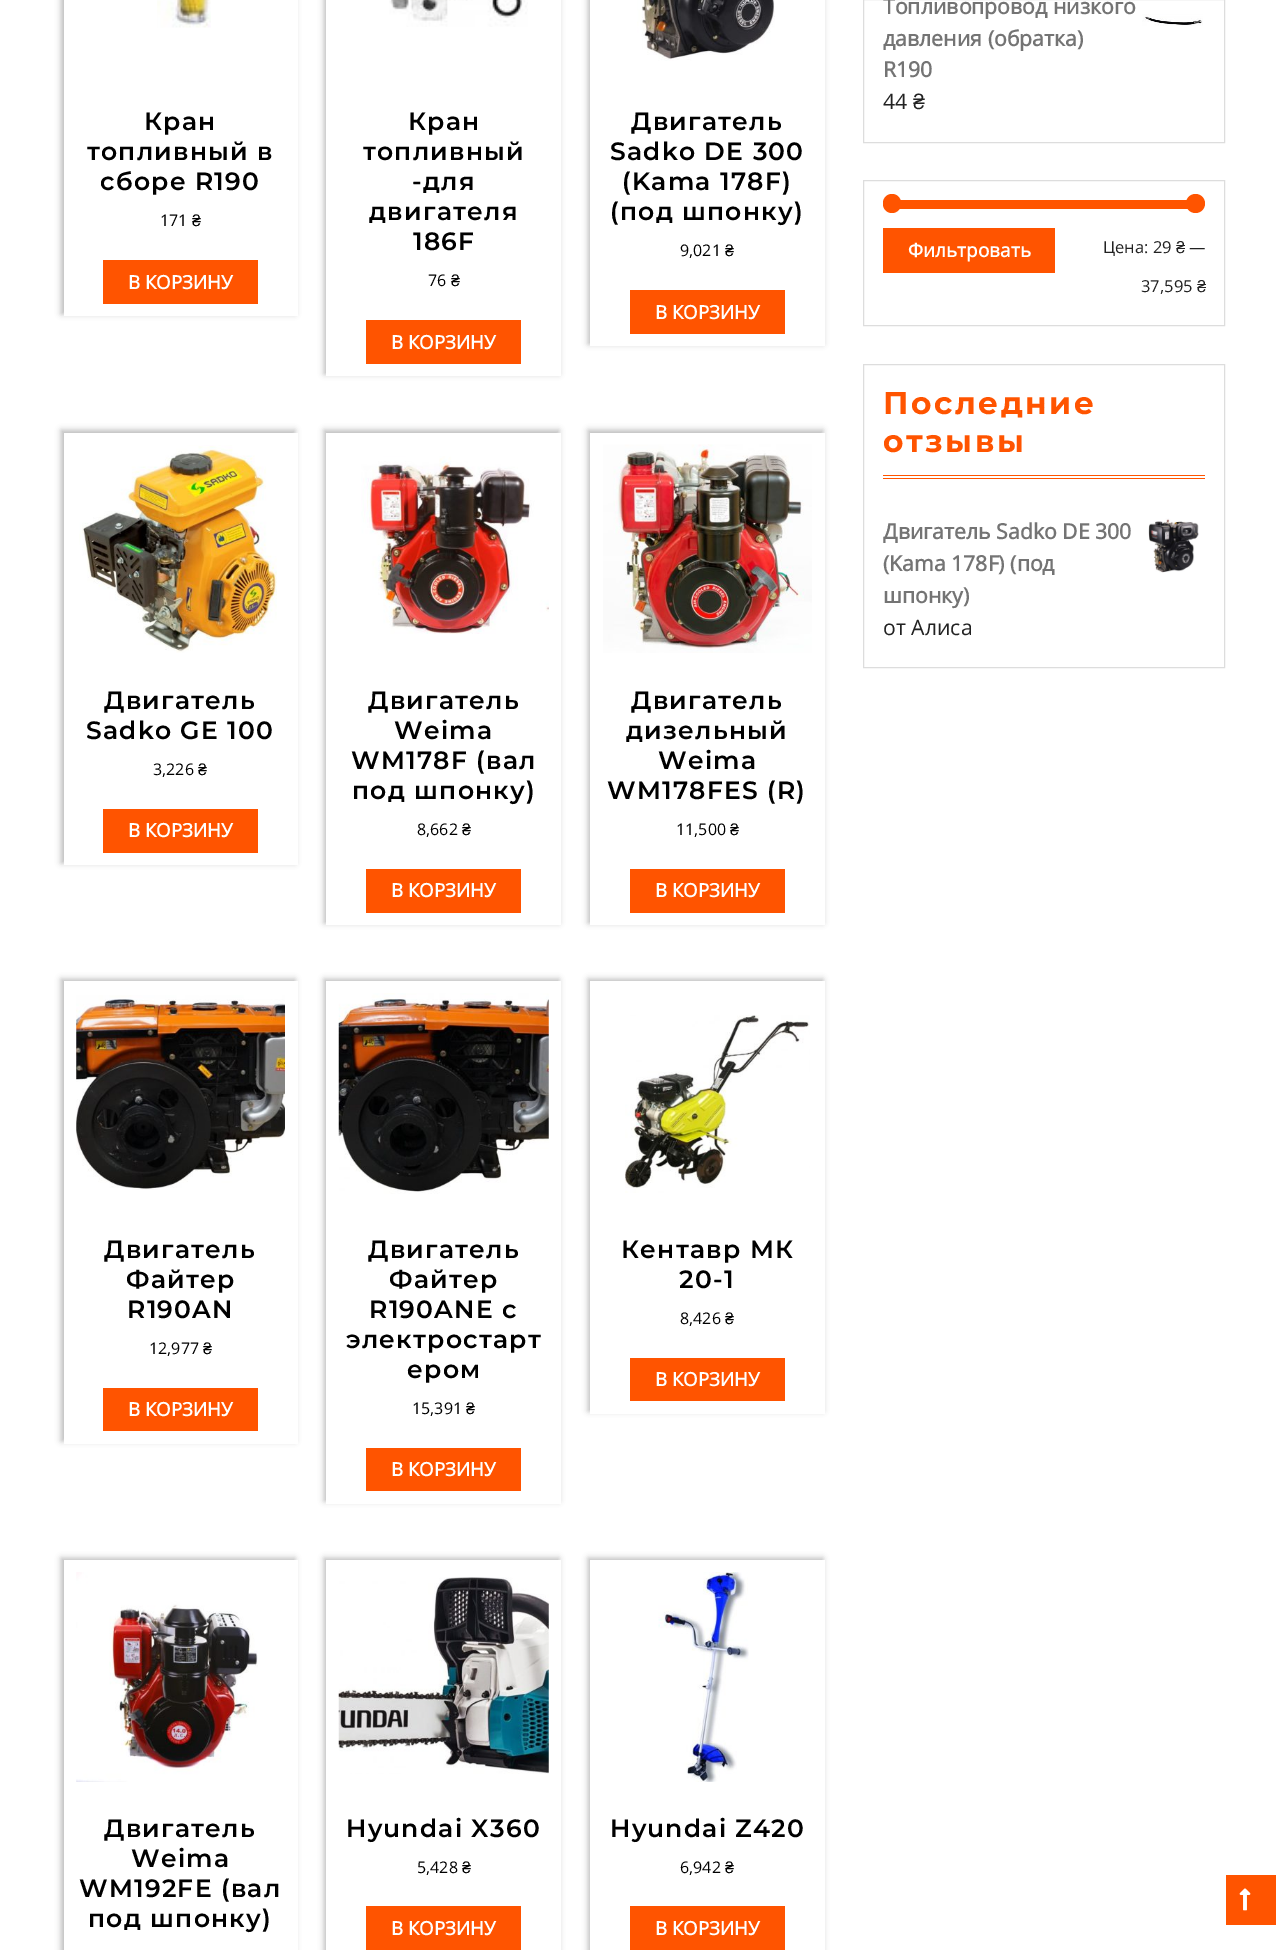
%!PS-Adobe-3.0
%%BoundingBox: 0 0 1288 1950
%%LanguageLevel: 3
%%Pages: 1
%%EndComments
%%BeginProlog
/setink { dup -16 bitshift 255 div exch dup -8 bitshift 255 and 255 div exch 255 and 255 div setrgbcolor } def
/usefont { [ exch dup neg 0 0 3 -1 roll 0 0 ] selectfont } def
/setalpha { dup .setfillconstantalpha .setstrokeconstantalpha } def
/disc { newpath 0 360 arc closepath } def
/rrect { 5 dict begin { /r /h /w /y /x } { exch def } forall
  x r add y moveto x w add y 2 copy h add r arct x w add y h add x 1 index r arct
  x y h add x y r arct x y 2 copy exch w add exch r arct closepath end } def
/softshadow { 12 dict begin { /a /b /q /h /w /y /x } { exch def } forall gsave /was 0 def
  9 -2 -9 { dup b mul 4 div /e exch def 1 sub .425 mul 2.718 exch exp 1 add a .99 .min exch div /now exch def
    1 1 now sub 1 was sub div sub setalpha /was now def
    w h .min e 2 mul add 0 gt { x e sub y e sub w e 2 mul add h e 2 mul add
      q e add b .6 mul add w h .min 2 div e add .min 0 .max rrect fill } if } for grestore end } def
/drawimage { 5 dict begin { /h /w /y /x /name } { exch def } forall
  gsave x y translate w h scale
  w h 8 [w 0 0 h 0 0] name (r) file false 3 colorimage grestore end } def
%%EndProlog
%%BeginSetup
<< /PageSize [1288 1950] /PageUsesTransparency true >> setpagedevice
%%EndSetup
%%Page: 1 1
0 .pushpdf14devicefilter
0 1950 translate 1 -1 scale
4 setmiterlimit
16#FFFFFF setink
0 0 1288 1950 rectfill
gsave
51 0 moveto 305 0 lineto 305 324 lineto 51 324 lineto closepath 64 -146 moveto 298 -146 lineto 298 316 lineto 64 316 lineto closepath eoclip newpath
16#BBBBBB setink
61 -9 234 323 0 3 1 softshadow
grestore
(img1.raw) 157 0 54 28 drawimage
/Montserrat-SemiBold 25 usefont
16#000000 setink
144 130 moveto 1.25 0 (Кран) ashow
87 160 moveto 1.25 0 (топливный в) ashow
100 190 moveto 1.25 0 (сборе R190) ashow
/OpenSans-Regular 16 usefont
160 226 moveto (171) show
/LiberationSans-Regular 16 usefont
192 226 moveto (₴) show
16#FF5400 setink
103 260 155 44 rectfill
/OpenSans-Bold 18.75 usefont
16#FFFFFF setink
128 289 moveto (В КОРЗИНУ) show
gsave
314 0 moveto 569 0 lineto 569 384 lineto 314 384 lineto closepath 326 -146 moveto 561 -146 lineto 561 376 lineto 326 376 lineto closepath eoclip newpath
16#BBBBBB setink
324 -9 235 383 0 3 1 softshadow
grestore
(img2.raw) 389 0 139 27 drawimage
/Montserrat-SemiBold 25 usefont
16#000000 setink
408 130 moveto 1.25 0 (Кран) ashow
363 160 moveto 1.25 0 (топливный) ashow
412 190 moveto 1.25 0 (-для) ashow
369 220 moveto 1.25 0 (двигателя) ashow
413 250 moveto 1.25 0 (186F) ashow
/OpenSans-Regular 16 usefont
428 286 moveto (76) show
/LiberationSans-Regular 16 usefont
451 286 moveto (₴) show
16#FF5400 setink
366 320 155 44 rectfill
/OpenSans-Bold 18.75 usefont
16#FFFFFF setink
391 349 moveto (В КОРЗИНУ) show
gsave
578 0 moveto 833 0 lineto 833 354 lineto 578 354 lineto closepath 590 -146 moveto 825 -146 lineto 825 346 lineto 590 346 lineto closepath eoclip newpath
16#BBBBBB setink
588 -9 235 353 0 3 1 softshadow
grestore
(img3.raw) 637 0 138 61 drawimage
/Montserrat-SemiBold 25 usefont
16#000000 setink
631 130 moveto 1.25 0 (Двигатель) ashow
610 160 moveto 1.25 0 (Sadko DE 300) ashow
622 190 moveto 1.25 0 (\(Kama 178F\)) ashow
610 220 moveto 1.25 0 (\(под шпонку\)) ashow
/OpenSans-Regular 16 usefont
680 256 moveto (9,021) show
/LiberationSans-Regular 16 usefont
725 256 moveto (₴) show
16#FF5400 setink
630 290 155 44 rectfill
/OpenSans-Bold 18.75 usefont
16#FFFFFF setink
655 319 moveto (В КОРЗИНУ) show
gsave
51 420 moveto 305 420 lineto 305 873 lineto 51 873 lineto closepath 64 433 moveto 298 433 lineto 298 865 lineto 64 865 lineto closepath eoclip newpath
16#BBBBBB setink
61 430 234 433 0 3 1 softshadow
grestore
(img4.raw) 79 445 198 208 drawimage
/Montserrat-SemiBold 25 usefont
16#000000 setink
104 709 moveto 1.25 0 (Двигатель) ashow
86 739 moveto 1.25 0 (Sadko GE 100) ashow
/OpenSans-Regular 16 usefont
153 775 moveto (3,226) show
/LiberationSans-Regular 16 usefont
198 775 moveto (₴) show
16#FF5400 setink
103 809 155 44 rectfill
/OpenSans-Bold 18.75 usefont
16#FFFFFF setink
128 837 moveto (В КОРЗИНУ) show
gsave
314 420 moveto 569 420 lineto 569 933 lineto 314 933 lineto closepath 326 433 moveto 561 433 lineto 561 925 lineto 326 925 lineto closepath eoclip newpath
16#BBBBBB setink
324 430 235 493 0 3 1 softshadow
grestore
(img5.raw) 361 456 188 178 drawimage
/Montserrat-SemiBold 25 usefont
16#000000 setink
368 709 moveto 1.25 0 (Двигатель) ashow
394 739 moveto 1.25 0 (Weima) ashow
351 769 moveto 1.25 0 (WM178F \(вал) ashow
352 799 moveto 1.25 0 (под шпонку\)) ashow
/OpenSans-Regular 16 usefont
417 835 moveto (8,662) show
/LiberationSans-Regular 16 usefont
462 835 moveto (₴) show
16#FF5400 setink
366 869 155 44 rectfill
/OpenSans-Bold 18.75 usefont
16#FFFFFF setink
391 897 moveto (В КОРЗИНУ) show
gsave
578 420 moveto 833 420 lineto 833 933 lineto 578 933 lineto closepath 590 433 moveto 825 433 lineto 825 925 lineto 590 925 lineto closepath eoclip newpath
16#BBBBBB setink
588 430 235 493 0 3 1 softshadow
grestore
(img6.raw) 603 444 209 209 drawimage
/Montserrat-SemiBold 25 usefont
16#000000 setink
631 709 moveto 1.25 0 (Двигатель) ashow
626 739 moveto 1.25 0 (дизельный) ashow
658 769 moveto 1.25 0 (Weima) ashow
607 799 moveto 1.25 0 (WM178FES \(R\)) ashow
/OpenSans-Regular 16 usefont
676 835 moveto (11,500) show
/LiberationSans-Regular 16 usefont
730 835 moveto (₴) show
16#FF5400 setink
630 869 155 44 rectfill
/OpenSans-Bold 18.75 usefont
16#FFFFFF setink
655 897 moveto (В КОРЗИНУ) show
gsave
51 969 moveto 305 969 lineto 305 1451 lineto 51 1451 lineto closepath 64 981 moveto 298 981 lineto 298 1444 lineto 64 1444 lineto closepath eoclip newpath
16#BBBBBB setink
61 979 234 462 0 3 1 softshadow
grestore
(img7.raw) 76 995 209 195 drawimage
/Montserrat-SemiBold 25 usefont
16#000000 setink
104 1258 moveto 1.25 0 (Двигатель) ashow
126 1288 moveto 1.25 0 (Файтер) ashow
127 1318 moveto 1.25 0 (R190AN) ashow
/OpenSans-Regular 16 usefont
149 1354 moveto (12,977) show
/LiberationSans-Regular 16 usefont
203 1354 moveto (₴) show
16#FF5400 setink
103 1388 155 43 rectfill
/OpenSans-Bold 18.75 usefont
16#FFFFFF setink
128 1416 moveto (В КОРЗИНУ) show
gsave
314 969 moveto 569 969 lineto 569 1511 lineto 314 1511 lineto closepath 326 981 moveto 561 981 lineto 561 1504 lineto 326 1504 lineto closepath eoclip newpath
16#BBBBBB setink
324 979 235 522 0 3 1 softshadow
grestore
(img8.raw) 338 993 211 201 drawimage
/Montserrat-SemiBold 25 usefont
16#000000 setink
368 1258 moveto 1.25 0 (Двигатель) ashow
389 1288 moveto 1.25 0 (Файтер) ashow
369 1318 moveto 1.25 0 (R190ANE с) ashow
346 1348 moveto 1.25 0 (электростарт) ashow
407 1378 moveto 1.25 0 (ером) ashow
/OpenSans-Regular 16 usefont
412 1414 moveto (15,391) show
/LiberationSans-Regular 16 usefont
466 1414 moveto (₴) show
16#FF5400 setink
366 1448 155 43 rectfill
/OpenSans-Bold 18.75 usefont
16#FFFFFF setink
391 1476 moveto (В КОРЗИНУ) show
gsave
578 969 moveto 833 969 lineto 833 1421 lineto 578 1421 lineto closepath 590 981 moveto 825 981 lineto 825 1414 lineto 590 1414 lineto closepath eoclip newpath
16#BBBBBB setink
588 979 235 432 0 3 1 softshadow
grestore
(img9.raw) 625 1015 185 178 drawimage
/Montserrat-SemiBold 25 usefont
16#000000 setink
621 1258 moveto 1.25 0 (Кентавр МК) ashow
679 1288 moveto 1.25 0 (20-1) ashow
/OpenSans-Regular 16 usefont
680 1324 moveto (8,426) show
/LiberationSans-Regular 16 usefont
725 1324 moveto (₴) show
16#FF5400 setink
630 1358 155 43 rectfill
/OpenSans-Bold 18.75 usefont
16#FFFFFF setink
655 1386 moveto (В КОРЗИНУ) show
gsave
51 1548 moveto 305 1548 lineto 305 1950 lineto 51 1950 lineto closepath 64 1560 moveto 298 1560 lineto 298 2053 lineto 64 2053 lineto closepath eoclip newpath
16#BBBBBB setink
61 1558 234 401 0 3 1 softshadow
grestore
(img10.raw) 76 1572 182 210 drawimage
/Montserrat-SemiBold 25 usefont
16#000000 setink
104 1837 moveto 1.25 0 (Двигатель) ashow
131 1867 moveto 1.25 0 (Weima) ashow
79 1897 moveto 1.25 0 (WM192FE \(вал) ashow
88 1927 moveto 1.25 0 (под шпонку\)) ashow
gsave
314 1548 moveto 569 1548 lineto 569 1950 lineto 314 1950 lineto closepath 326 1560 moveto 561 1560 lineto 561 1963 lineto 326 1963 lineto closepath eoclip newpath
16#BBBBBB setink
324 1558 235 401 0 3 1 softshadow
grestore
(img11.raw) 338 1577 211 197 drawimage
346 1837 moveto 1.25 0 (Hyundai X360) ashow
/OpenSans-Regular 16 usefont
417 1873 moveto (5,428) show
/LiberationSans-Regular 16 usefont
462 1873 moveto (₴) show
16#FF5400 setink
366 1906 155 44 rectfill
/OpenSans-Bold 18.75 usefont
16#FFFFFF setink
391 1935 moveto (В КОРЗИНУ) show
gsave
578 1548 moveto 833 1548 lineto 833 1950 lineto 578 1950 lineto closepath 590 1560 moveto 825 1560 lineto 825 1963 lineto 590 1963 lineto closepath eoclip newpath
16#BBBBBB setink
588 1558 235 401 0 3 1 softshadow
grestore
(img12.raw) 658 1572 91 210 drawimage
/Montserrat-SemiBold 25 usefont
16#000000 setink
610 1837 moveto 1.25 0 (Hyundai Z420) ashow
/OpenSans-Regular 16 usefont
680 1873 moveto (6,942) show
/LiberationSans-Regular 16 usefont
725 1873 moveto (₴) show
16#FF5400 setink
630 1906 155 44 rectfill
/OpenSans-Bold 18.75 usefont
16#FFFFFF setink
655 1935 moveto (В КОРЗИНУ) show
16#DDDDDD setink
863.5 -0.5 361 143 rectstroke
/OpenSans-Bold 21.25 usefont
16#747474 setink
883 14 moveto (Топливопровод низкого) show
(img13.raw) 1142 14 61 12 drawimage
883 46 moveto (давления \(обратка\)) show
883 77 moveto (R190) show
/OpenSans-Regular 21.25 usefont
16#222222 setink
883 109 moveto (44) show
/LiberationSans-Regular 21.25 usefont
913 109 moveto (₴) show
16#DDDDDD setink
863.5 180.5 361 145 rectstroke
16#FF5400 setink
899 200 289 9 rectfill
883 194 18 19 9 rrect fill
1195.5 203.5 9.5 disc fill
883 228 172 45 rectfill
/OpenSans-Bold 19 usefont
16#FFFFFF setink
908 257 moveto (Фильтровать) show
/OpenSans-Regular 16.5 usefont
16#222222 setink
1103 253 moveto (Цена: 29) show
/LiberationSans-Regular 16.5 usefont
1176 253 moveto (₴) show
/OpenSans-Regular 16.5 usefont
1189 253 moveto (—) show
1141 292 moveto (37,595) show
/LiberationSans-Regular 16.5 usefont
1197 292 moveto (₴) show
16#DDDDDD setink
863.5 364.5 361 303 rectstroke
16#FF5400 setink
883 475 322 1 rectfill
883 478 322 1 rectfill
/Montserrat-Bold 31.25 usefont
883 414 moveto 2.5 0 (Последние) ashow
883 452 moveto 2.5 0 (отзывы) ashow
/OpenSans-Bold 21.25 usefont
16#747474 setink
883 539 moveto (Двигатель Sadko DE 300) show
(img14.raw) 1148 518 51 55 drawimage
883 571 moveto (\(Kama 178F\) \(под) show
883 603 moveto (шпонку\)) show
/OpenSans-Regular 21.25 usefont
16#222222 setink
883 635 moveto (от Алиса) show
16#FF5400 setink
1226 1875 50 50 rectfill
(img15.raw) 1239 1888 12 23 drawimage
.poppdf14devicefilter showpage
%%EOF
